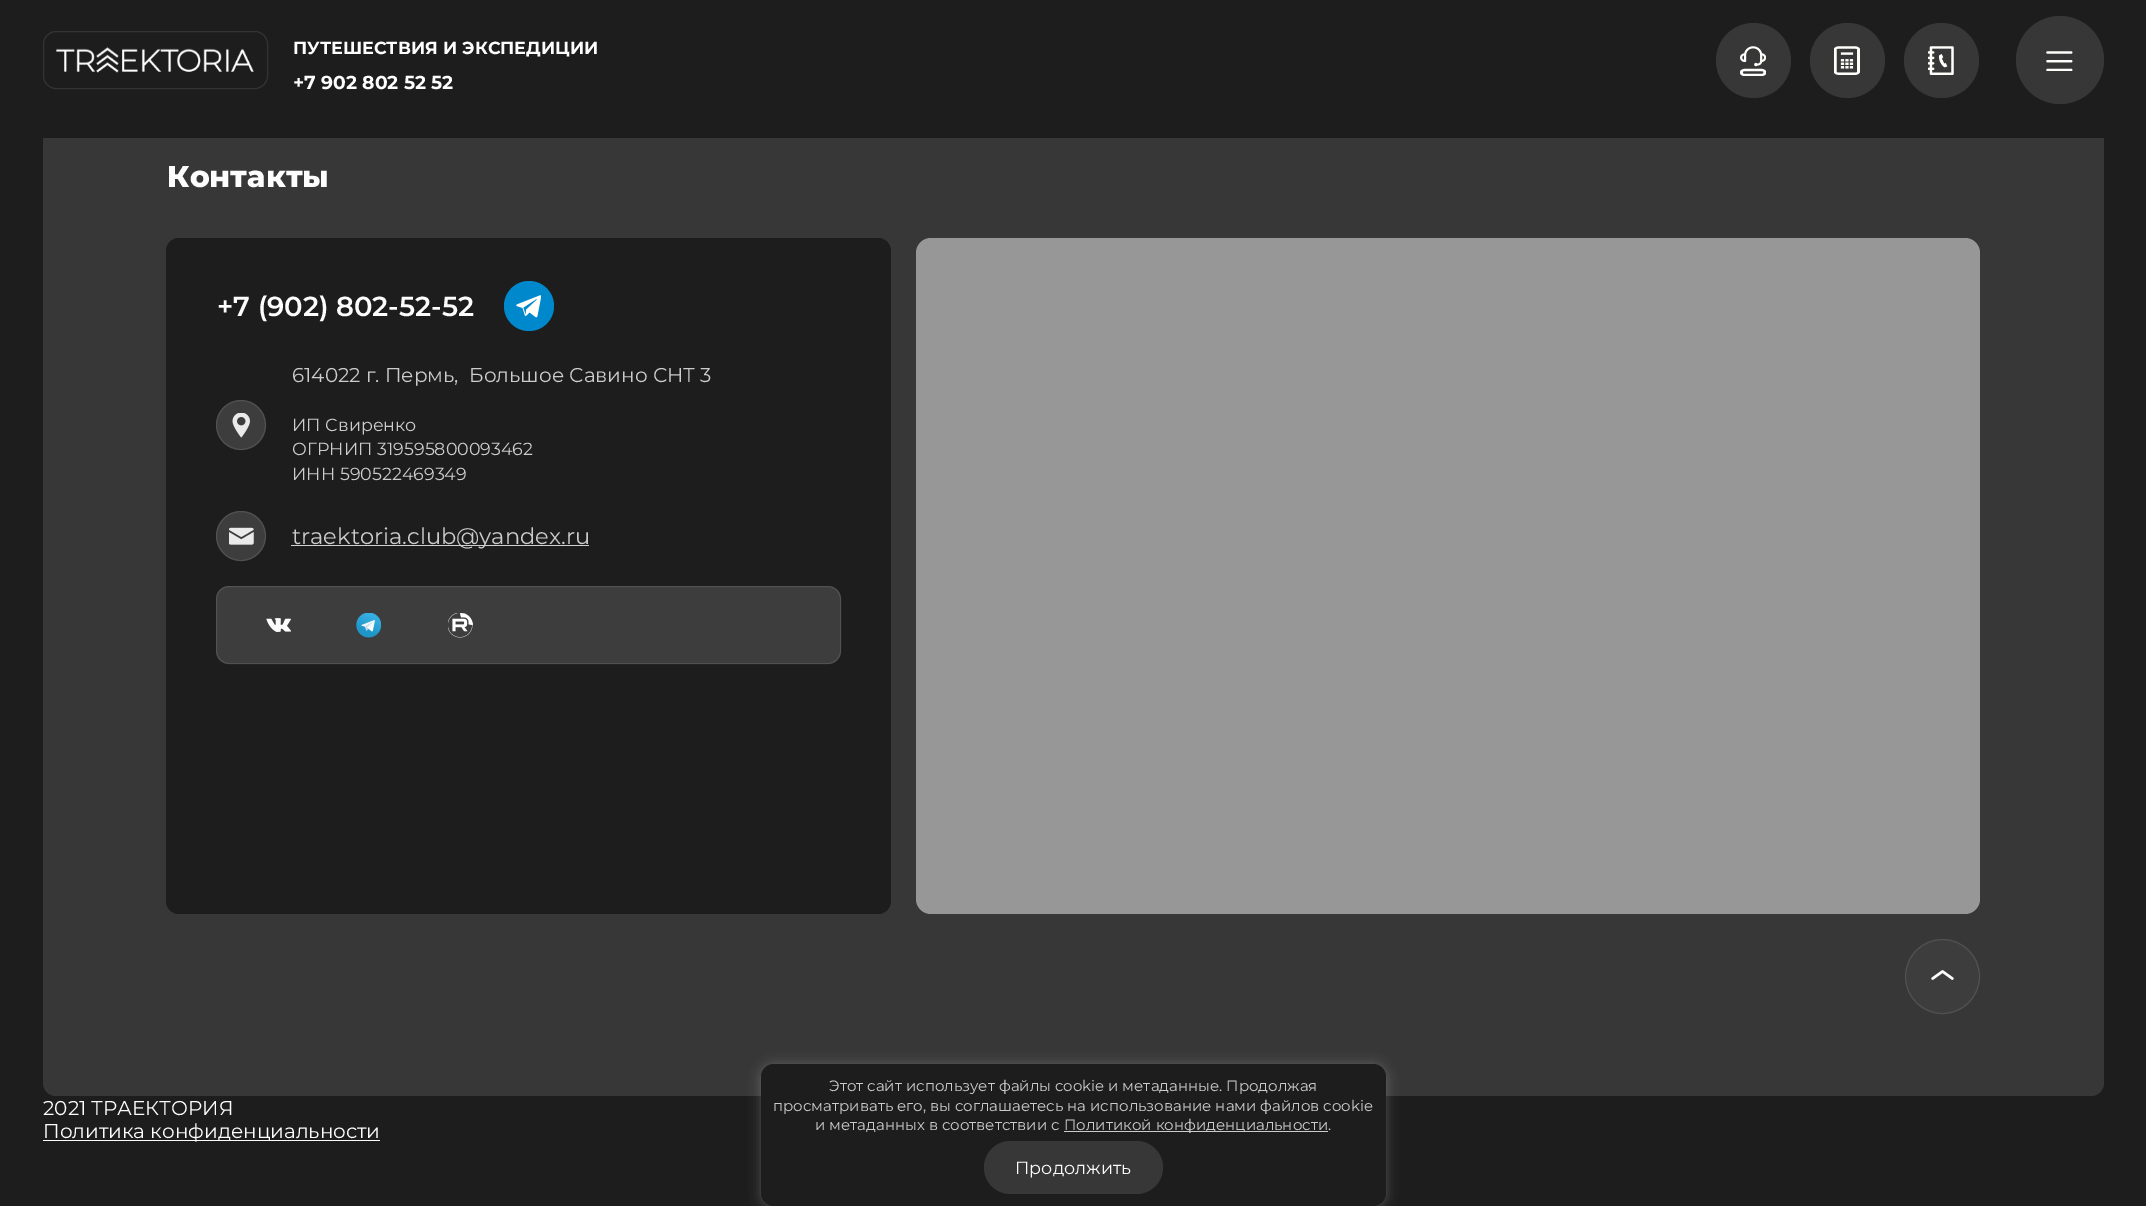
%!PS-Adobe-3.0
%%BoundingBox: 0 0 2146 1206
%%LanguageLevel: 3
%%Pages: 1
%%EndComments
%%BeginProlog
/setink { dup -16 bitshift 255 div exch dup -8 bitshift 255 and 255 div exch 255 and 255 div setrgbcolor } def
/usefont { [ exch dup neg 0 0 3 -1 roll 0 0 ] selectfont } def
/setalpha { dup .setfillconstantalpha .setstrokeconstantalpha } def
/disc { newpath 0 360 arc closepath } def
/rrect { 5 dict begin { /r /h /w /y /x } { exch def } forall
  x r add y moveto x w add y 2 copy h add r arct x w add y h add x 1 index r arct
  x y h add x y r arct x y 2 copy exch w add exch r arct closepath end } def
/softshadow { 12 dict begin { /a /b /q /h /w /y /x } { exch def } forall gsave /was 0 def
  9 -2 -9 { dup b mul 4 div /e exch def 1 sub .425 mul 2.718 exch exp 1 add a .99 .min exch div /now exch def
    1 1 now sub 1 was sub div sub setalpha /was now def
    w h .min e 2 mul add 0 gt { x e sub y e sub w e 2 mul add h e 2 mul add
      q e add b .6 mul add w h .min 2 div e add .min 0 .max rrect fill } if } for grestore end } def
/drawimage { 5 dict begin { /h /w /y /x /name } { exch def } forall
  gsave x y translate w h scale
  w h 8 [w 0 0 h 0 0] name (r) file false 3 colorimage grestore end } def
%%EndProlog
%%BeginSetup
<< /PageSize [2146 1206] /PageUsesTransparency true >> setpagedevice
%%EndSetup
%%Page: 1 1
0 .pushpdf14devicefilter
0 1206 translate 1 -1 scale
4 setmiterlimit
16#1D1D1D setink
0 0 2146 1206 rectfill
16#373737 setink
43 50 2061 1046 13 rrect fill
16#1D1D1D setink
43 50 2061 88 rectfill
16#333333 setink
43.5 31.5 224 57 12.5 rrect stroke
(img1.raw) 56 47 198 26 drawimage
/Montserrat-Bold 17.5 usefont
16#FDFDFD setink
293 54 moveto (ПУТЕШЕСТВИЯ И ЭКСПЕДИЦИИ) show
/Montserrat-Bold 18.75 usefont
293 89 moveto (+7 902 802 52 52) show
16#373737 setink
1753.5 60.5 37.5 disc fill
(img2.raw) 1740 46 26 30 drawimage
1847.5 60.5 37.5 disc fill
(img3.raw) 1834 46 26 29 drawimage
1941.5 60.5 37.5 disc fill
(img4.raw) 1928 46 26 29 drawimage
2060 60 44 disc fill
(img5.raw) 2046 51 27 20 drawimage
/Montserrat-ExtraBold 30 usefont
16#FDFDFD setink
167 187 moveto (Контакты) show
16#1D1D1D setink
166 238 725 676 13 rrect fill
/Montserrat-SemiBold 27.5 usefont
16#FDFDFD setink
217 316 moveto (+7 \(902\) 802-52-52) show
16#0088CC setink
529 306 25 disc fill
(img6.raw) 516 295 25 23 drawimage
16#3D3D3D setink
241 425 25 disc fill
0.1 setalpha
16#FDFDFD setink
241 425 24.5 disc stroke
1 setalpha
(img7.raw) 232 413 18 25 drawimage
/Montserrat-Regular 20 usefont
16#CCCCCC setink
292 382 moveto (614022 г. Пермь,  Большое Савино СНТ 3) show
/Montserrat-Regular 17.5 usefont
[
    [(ИП Свиренко) 292 431]
    [(ОГРНИП 319595800093462) 292 455]
    [(ИНН 590522469349) 292 480]
] { aload pop moveto show } forall
16#3D3D3D setink
241 536 25 disc fill
0.1 setalpha
16#FDFDFD setink
241 536 24.5 disc stroke
1 setalpha
(img8.raw) 229 527 25 18 drawimage
16#D0D0D0 setink
291 545 298 1 rectfill
/Montserrat-Regular 22.5 usefont
16#CCCCCC setink
292 544 moveto (traektoria.club@yandex.ru) show
16#3D3D3D setink
216 586 625 78 13 rrect fill
0.1 setalpha
16#FDFDFD setink
216.5 586.5 624 77 12.5 rrect stroke
1 setalpha
(img9.raw) 266 618 25 14 drawimage
(img10.raw) 356 613 25 25 drawimage
(img11.raw) 448 613 25 25 drawimage
16#979797 setink
916 238 1064 676 15 rrect fill
16#3D3D3D setink
1942.5 976.5 37.5 disc fill
0.1 setalpha
16#FDFDFD setink
1942.5 976.5 37 disc stroke
1 setalpha
(img12.raw) 1931 970 23 10 drawimage
/Montserrat-Regular 20 usefont
43 1115 moveto (2021 ТРАЕКТОРИЯ) show
16#FFFFFF setink
43 1140 337 1 rectfill
16#FDFDFD setink
43 1138 moveto (Политика конфиденциальности) show
16#FFFFFF setink
761 1065 625 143 13 6 0.23 softshadow
16#1D1D1D setink
761 1064 625 142 13 rrect fill
/Montserrat-Regular 15 usefont
16#CCCCCC setink
[
    [(Этот сайт использует файлы cookie и метаданные. Продолжая) 829 1091]
    [(просматривать его, вы соглашаетесь на использование нами файлов cookie) 773 1111]
    [(и метаданных в соответствии с) 815 1130]
] { aload pop moveto show } forall
1064 1131 264 1 rectfill
1064 1130 moveto (Политикой конфиденциальности.) show
16#373737 setink
984 1141 179 53 26.5 rrect fill
/Montserrat-Regular 17.5 usefont
16#FDFDFD setink
1015 1174 moveto (Продолжить) show
.poppdf14devicefilter showpage
%%EOF
